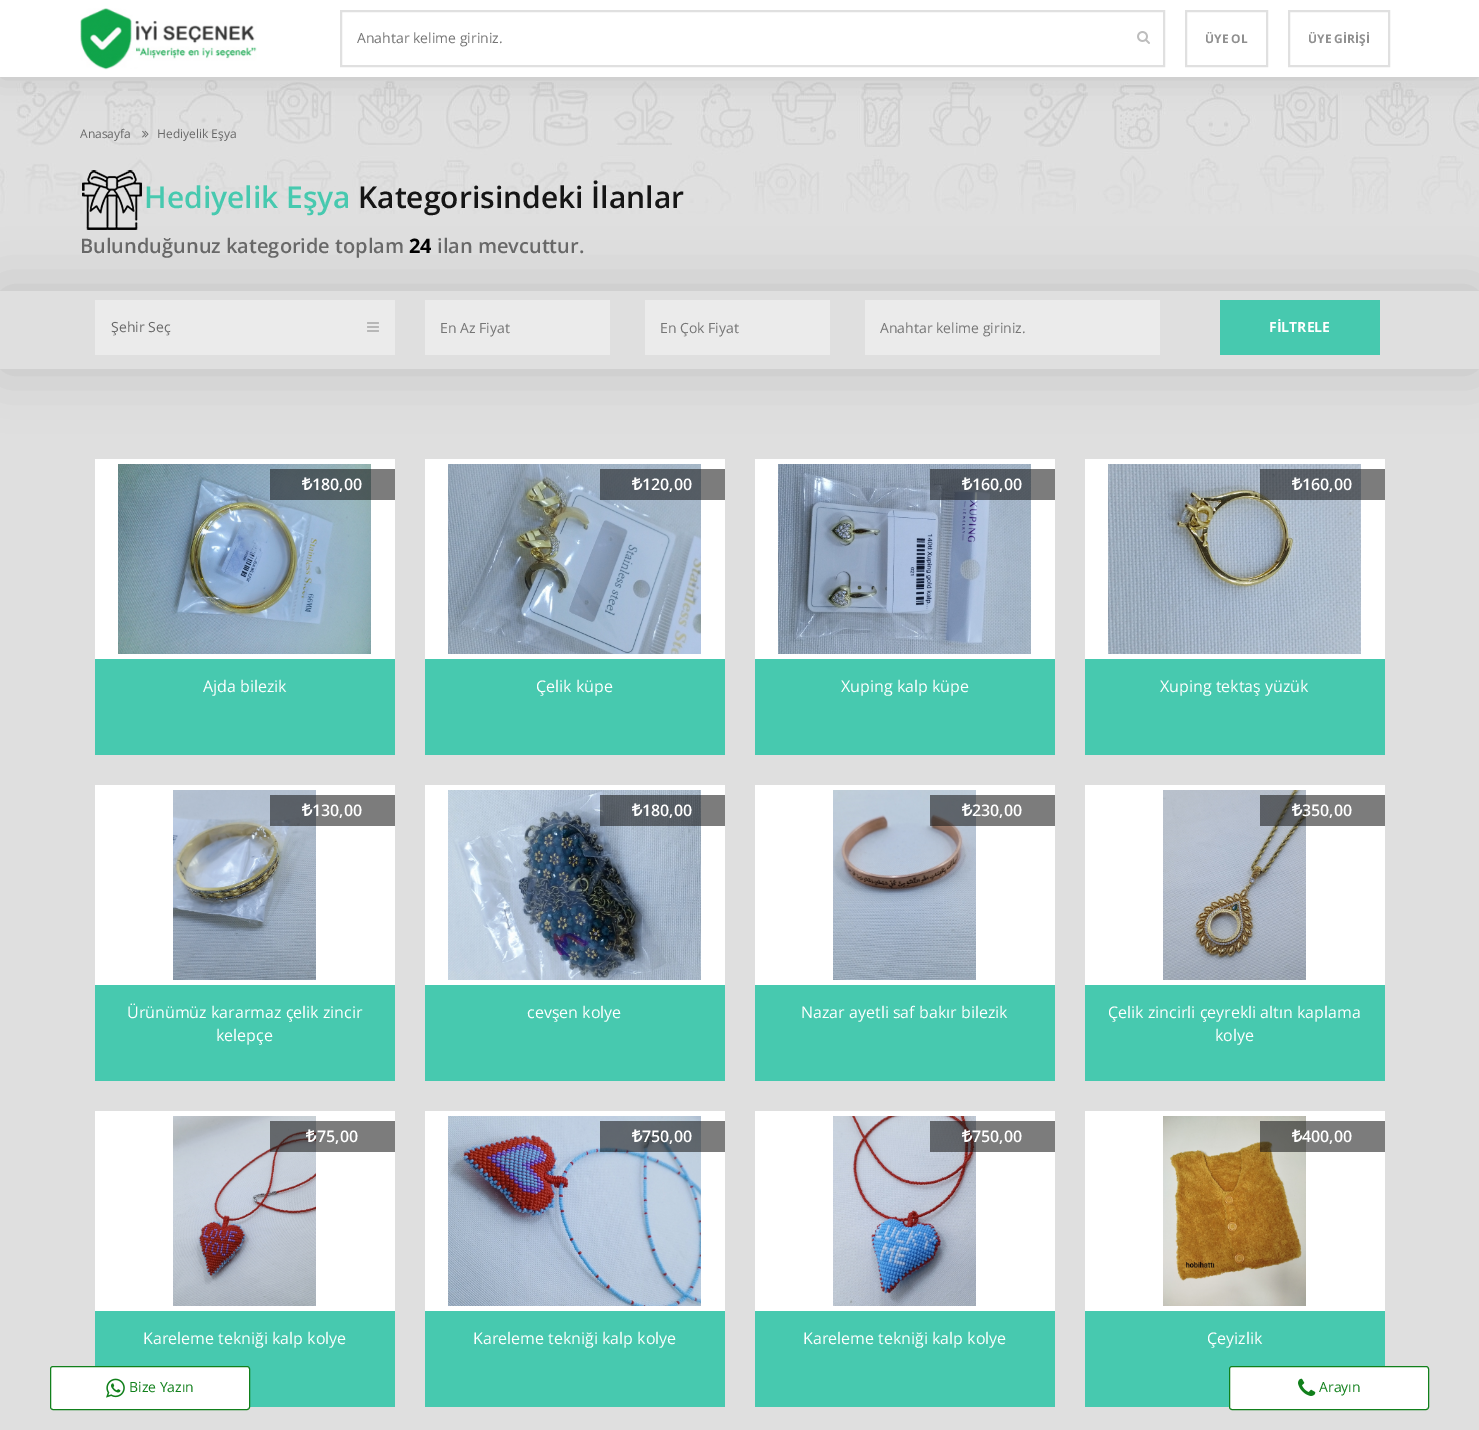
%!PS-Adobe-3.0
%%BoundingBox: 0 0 1479 1430
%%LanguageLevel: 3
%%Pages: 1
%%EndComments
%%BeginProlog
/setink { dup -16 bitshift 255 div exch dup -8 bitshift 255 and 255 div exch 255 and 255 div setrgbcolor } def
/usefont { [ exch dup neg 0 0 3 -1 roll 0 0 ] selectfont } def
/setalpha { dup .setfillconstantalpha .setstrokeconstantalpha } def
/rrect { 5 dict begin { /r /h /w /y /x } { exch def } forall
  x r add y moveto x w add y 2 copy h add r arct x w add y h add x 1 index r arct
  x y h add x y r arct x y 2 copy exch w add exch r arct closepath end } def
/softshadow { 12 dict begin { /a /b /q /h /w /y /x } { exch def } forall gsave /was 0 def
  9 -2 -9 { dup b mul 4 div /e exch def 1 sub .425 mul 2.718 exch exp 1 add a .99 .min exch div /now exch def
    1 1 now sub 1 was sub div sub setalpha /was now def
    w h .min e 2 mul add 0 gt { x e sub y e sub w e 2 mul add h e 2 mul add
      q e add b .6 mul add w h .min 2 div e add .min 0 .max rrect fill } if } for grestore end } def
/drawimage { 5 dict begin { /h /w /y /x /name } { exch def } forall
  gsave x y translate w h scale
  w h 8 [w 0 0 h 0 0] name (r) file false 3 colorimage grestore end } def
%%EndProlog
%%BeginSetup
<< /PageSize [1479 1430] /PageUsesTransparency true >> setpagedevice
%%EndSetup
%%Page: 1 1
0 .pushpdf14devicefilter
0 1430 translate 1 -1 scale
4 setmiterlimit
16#DFDFDF setink
0 0 1479 1430 rectfill
(img3.raw) 0 80 1479 134 drawimage
16#000000 setink
0 0 1479 77 0 15 0.14 softshadow
16#FFFFFF setink
0 0 1479 77 rectfill
(img1.raw) 80 8 177 62 drawimage
16#E0E0E0 setink
2 setlinewidth
341 11 823 55 rectstroke
/OpenSans-Regular 14 usefont
16#757575 setink
357 43 moveto (Anahtar kelime giriniz.) show
(img2.raw) 1137 31 13 13 drawimage
16#E0E0E0 setink
1186 11 81 55 rectstroke
/OpenSans-Bold 12 usefont
16#909090 setink
1205 43 moveto (ÜYE OL) show
16#E0E0E0 setink
1289 11 100 55 rectstroke
16#909090 setink
1308 43 moveto (ÜYE GİRİŞİ) show
/OpenSans-Regular 12 usefont
16#686868 setink
80 138 moveto (Anasayfa) show
(img4.raw) 142 130 7 8 drawimage
157 138 moveto (Hediyelik Eşya) show
(img5.raw) 82 170 60 60 drawimage
/OpenSans-SemiBold 30 usefont
16#47C9AF setink
144 208 moveto (Hediyelik Eşya) show
16#151515 setink
358 208 moveto (Kategorisindeki İlanlar) show
/OpenSans-SemiBold 20 usefont
16#686868 setink
80 253 moveto (Bulunduğunuz kategoride toplam) show
/OpenSans-Bold 20 usefont
16#000000 setink
409 253 moveto (24) show
/OpenSans-SemiBold 20 usefont
16#686868 setink
437 253 moveto (ilan mevcuttur.) show
gsave
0 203 moveto 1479 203 lineto 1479 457 lineto 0 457 lineto closepath 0 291 moveto 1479 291 lineto 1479 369 lineto 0 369 lineto closepath eoclip newpath
16#000000 setink
0 291 1479 78 0 29 0.14 softshadow
grestore
16#EBEBEB setink
95 300 300 55 rectfill
/OpenSans-Regular 14 usefont
16#686868 setink
111 332 moveto (Şehir Seç) show
(img6.raw) 367 322 12 10 drawimage
16#EBEBEB setink
425 300 185 55 rectfill
16#757575 setink
440 333 moveto (En Az Fiyat) show
16#EBEBEB setink
645 300 185 55 rectfill
16#757575 setink
660 333 moveto (En Çok Fiyat) show
16#EBEBEB setink
865 300 295 55 rectfill
16#757575 setink
880 333 moveto (Anahtar kelime giriniz.) show
16#47C9AF setink
1220 300 160 55 rectfill
/OpenSans-Bold 14 usefont
16#FFFFFF setink
1269 332 moveto (FİLTRELE) show
16#47C9AF setink
95 659 300 96 rectfill
16#FFFFFF setink
95 459 300 200 rectfill
(img7.raw) 118 464 253 190 drawimage
0.56 setalpha
16#151515 setink
270 469 125 31 rectfill
1 setalpha
(img8.raw) 302 477 11 13 drawimage
/OpenSans-SemiBold 16 usefont
16#FFFFFF setink
312 490 moveto (180,00) show
/OpenSans-Regular 16 usefont
203 692 moveto (Ajda bilezik) show
16#47C9AF setink
425 659 300 96 rectfill
16#FFFFFF setink
425 459 300 200 rectfill
(img9.raw) 448 464 253 190 drawimage
0.56 setalpha
16#151515 setink
600 469 125 31 rectfill
1 setalpha
(img10.raw) 632 477 11 13 drawimage
/OpenSans-SemiBold 16 usefont
16#FFFFFF setink
642 490 moveto (120,00) show
/OpenSans-Regular 16 usefont
536 692 moveto (Çelik küpe) show
16#47C9AF setink
755 659 300 96 rectfill
16#FFFFFF setink
755 459 300 200 rectfill
(img11.raw) 778 464 253 190 drawimage
0.56 setalpha
16#151515 setink
930 469 125 31 rectfill
1 setalpha
(img12.raw) 962 477 11 13 drawimage
/OpenSans-SemiBold 16 usefont
16#FFFFFF setink
972 490 moveto (160,00) show
/OpenSans-Regular 16 usefont
841 692 moveto (Xuping kalp küpe) show
16#47C9AF setink
1085 659 300 96 rectfill
16#FFFFFF setink
1085 459 300 200 rectfill
(img13.raw) 1108 464 253 190 drawimage
0.56 setalpha
16#151515 setink
1260 469 125 31 rectfill
1 setalpha
(img14.raw) 1292 477 11 13 drawimage
/OpenSans-SemiBold 16 usefont
16#FFFFFF setink
1302 490 moveto (160,00) show
/OpenSans-Regular 16 usefont
1160 692 moveto (Xuping tektaş yüzük) show
16#47C9AF setink
95 985 300 96 rectfill
16#FFFFFF setink
95 785 300 200 rectfill
(img15.raw) 173 790 143 190 drawimage
0.56 setalpha
16#151515 setink
270 795 125 31 rectfill
1 setalpha
(img16.raw) 302 803 11 13 drawimage
/OpenSans-SemiBold 16 usefont
16#FFFFFF setink
312 816 moveto (130,00) show
/OpenSans-Regular 16 usefont
127 1018 moveto (Ürünümüz kararmaz çelik zincir) show
216 1041 moveto (kelepçe) show
16#47C9AF setink
425 985 300 96 rectfill
16#FFFFFF setink
425 785 300 200 rectfill
(img17.raw) 448 790 253 190 drawimage
0.56 setalpha
16#151515 setink
600 795 125 31 rectfill
1 setalpha
(img18.raw) 632 803 11 13 drawimage
/OpenSans-SemiBold 16 usefont
16#FFFFFF setink
642 816 moveto (180,00) show
/OpenSans-Regular 16 usefont
527 1018 moveto (cevşen kolye) show
16#47C9AF setink
755 985 300 96 rectfill
16#FFFFFF setink
755 785 300 200 rectfill
(img19.raw) 833 790 143 190 drawimage
0.56 setalpha
16#151515 setink
930 795 125 31 rectfill
1 setalpha
(img20.raw) 962 803 11 13 drawimage
/OpenSans-SemiBold 16 usefont
16#FFFFFF setink
972 816 moveto (230,00) show
/OpenSans-Regular 16 usefont
801 1018 moveto (Nazar ayetli saf bakır bilezik) show
16#47C9AF setink
1085 985 300 96 rectfill
16#FFFFFF setink
1085 785 300 200 rectfill
(img21.raw) 1163 790 143 190 drawimage
0.56 setalpha
16#151515 setink
1260 795 125 31 rectfill
1 setalpha
(img22.raw) 1292 803 11 13 drawimage
/OpenSans-SemiBold 16 usefont
16#FFFFFF setink
1302 816 moveto (350,00) show
/OpenSans-Regular 16 usefont
1108 1018 moveto (Çelik zincirli çeyrekli altın kaplama) show
1215 1041 moveto (kolye) show
16#47C9AF setink
95 1311 300 96 rectfill
16#FFFFFF setink
95 1111 300 200 rectfill
(img23.raw) 173 1116 143 190 drawimage
0.56 setalpha
16#151515 setink
270 1121 125 31 rectfill
1 setalpha
(img24.raw) 306 1129 11 13 drawimage
/OpenSans-SemiBold 16 usefont
16#FFFFFF setink
317 1142 moveto (75,00) show
/OpenSans-Regular 16 usefont
143 1344 moveto (Kareleme tekniği kalp kolye) show
16#47C9AF setink
425 1311 300 96 rectfill
16#FFFFFF setink
425 1111 300 200 rectfill
(img25.raw) 448 1116 253 190 drawimage
0.56 setalpha
16#151515 setink
600 1121 125 31 rectfill
1 setalpha
(img26.raw) 632 1129 11 13 drawimage
/OpenSans-SemiBold 16 usefont
16#FFFFFF setink
642 1142 moveto (750,00) show
/OpenSans-Regular 16 usefont
473 1344 moveto (Kareleme tekniği kalp kolye) show
16#47C9AF setink
755 1311 300 96 rectfill
16#FFFFFF setink
755 1111 300 200 rectfill
(img27.raw) 833 1116 143 190 drawimage
0.56 setalpha
16#151515 setink
930 1121 125 31 rectfill
1 setalpha
(img28.raw) 962 1129 11 13 drawimage
/OpenSans-SemiBold 16 usefont
16#FFFFFF setink
972 1142 moveto (750,00) show
/OpenSans-Regular 16 usefont
803 1344 moveto (Kareleme tekniği kalp kolye) show
16#47C9AF setink
1085 1311 300 96 rectfill
16#FFFFFF setink
1085 1111 300 200 rectfill
(img29.raw) 1163 1116 143 190 drawimage
0.56 setalpha
16#151515 setink
1260 1121 125 31 rectfill
1 setalpha
(img30.raw) 1292 1129 11 13 drawimage
/OpenSans-SemiBold 16 usefont
16#FFFFFF setink
1302 1142 moveto (400,00) show
/OpenSans-Regular 16 usefont
1207 1344 moveto (Çeyizlik) show
50.5 1366.5 199 43 2.5 rrect gsave fill grestore
16#11801B setink
1 setlinewidth
stroke
(img31.raw) 106 1378 19 20 drawimage
/OpenSans-Regular 14 usefont
129 1392 moveto (Bize Yazın) show
16#FFFFFF setink
1229.5 1366.5 199 43 2.5 rrect gsave fill grestore
16#11801B setink
stroke
(img32.raw) 1298 1378 18 18 drawimage
1319 1392 moveto (Arayın) show
.poppdf14devicefilter showpage
%%EOF
